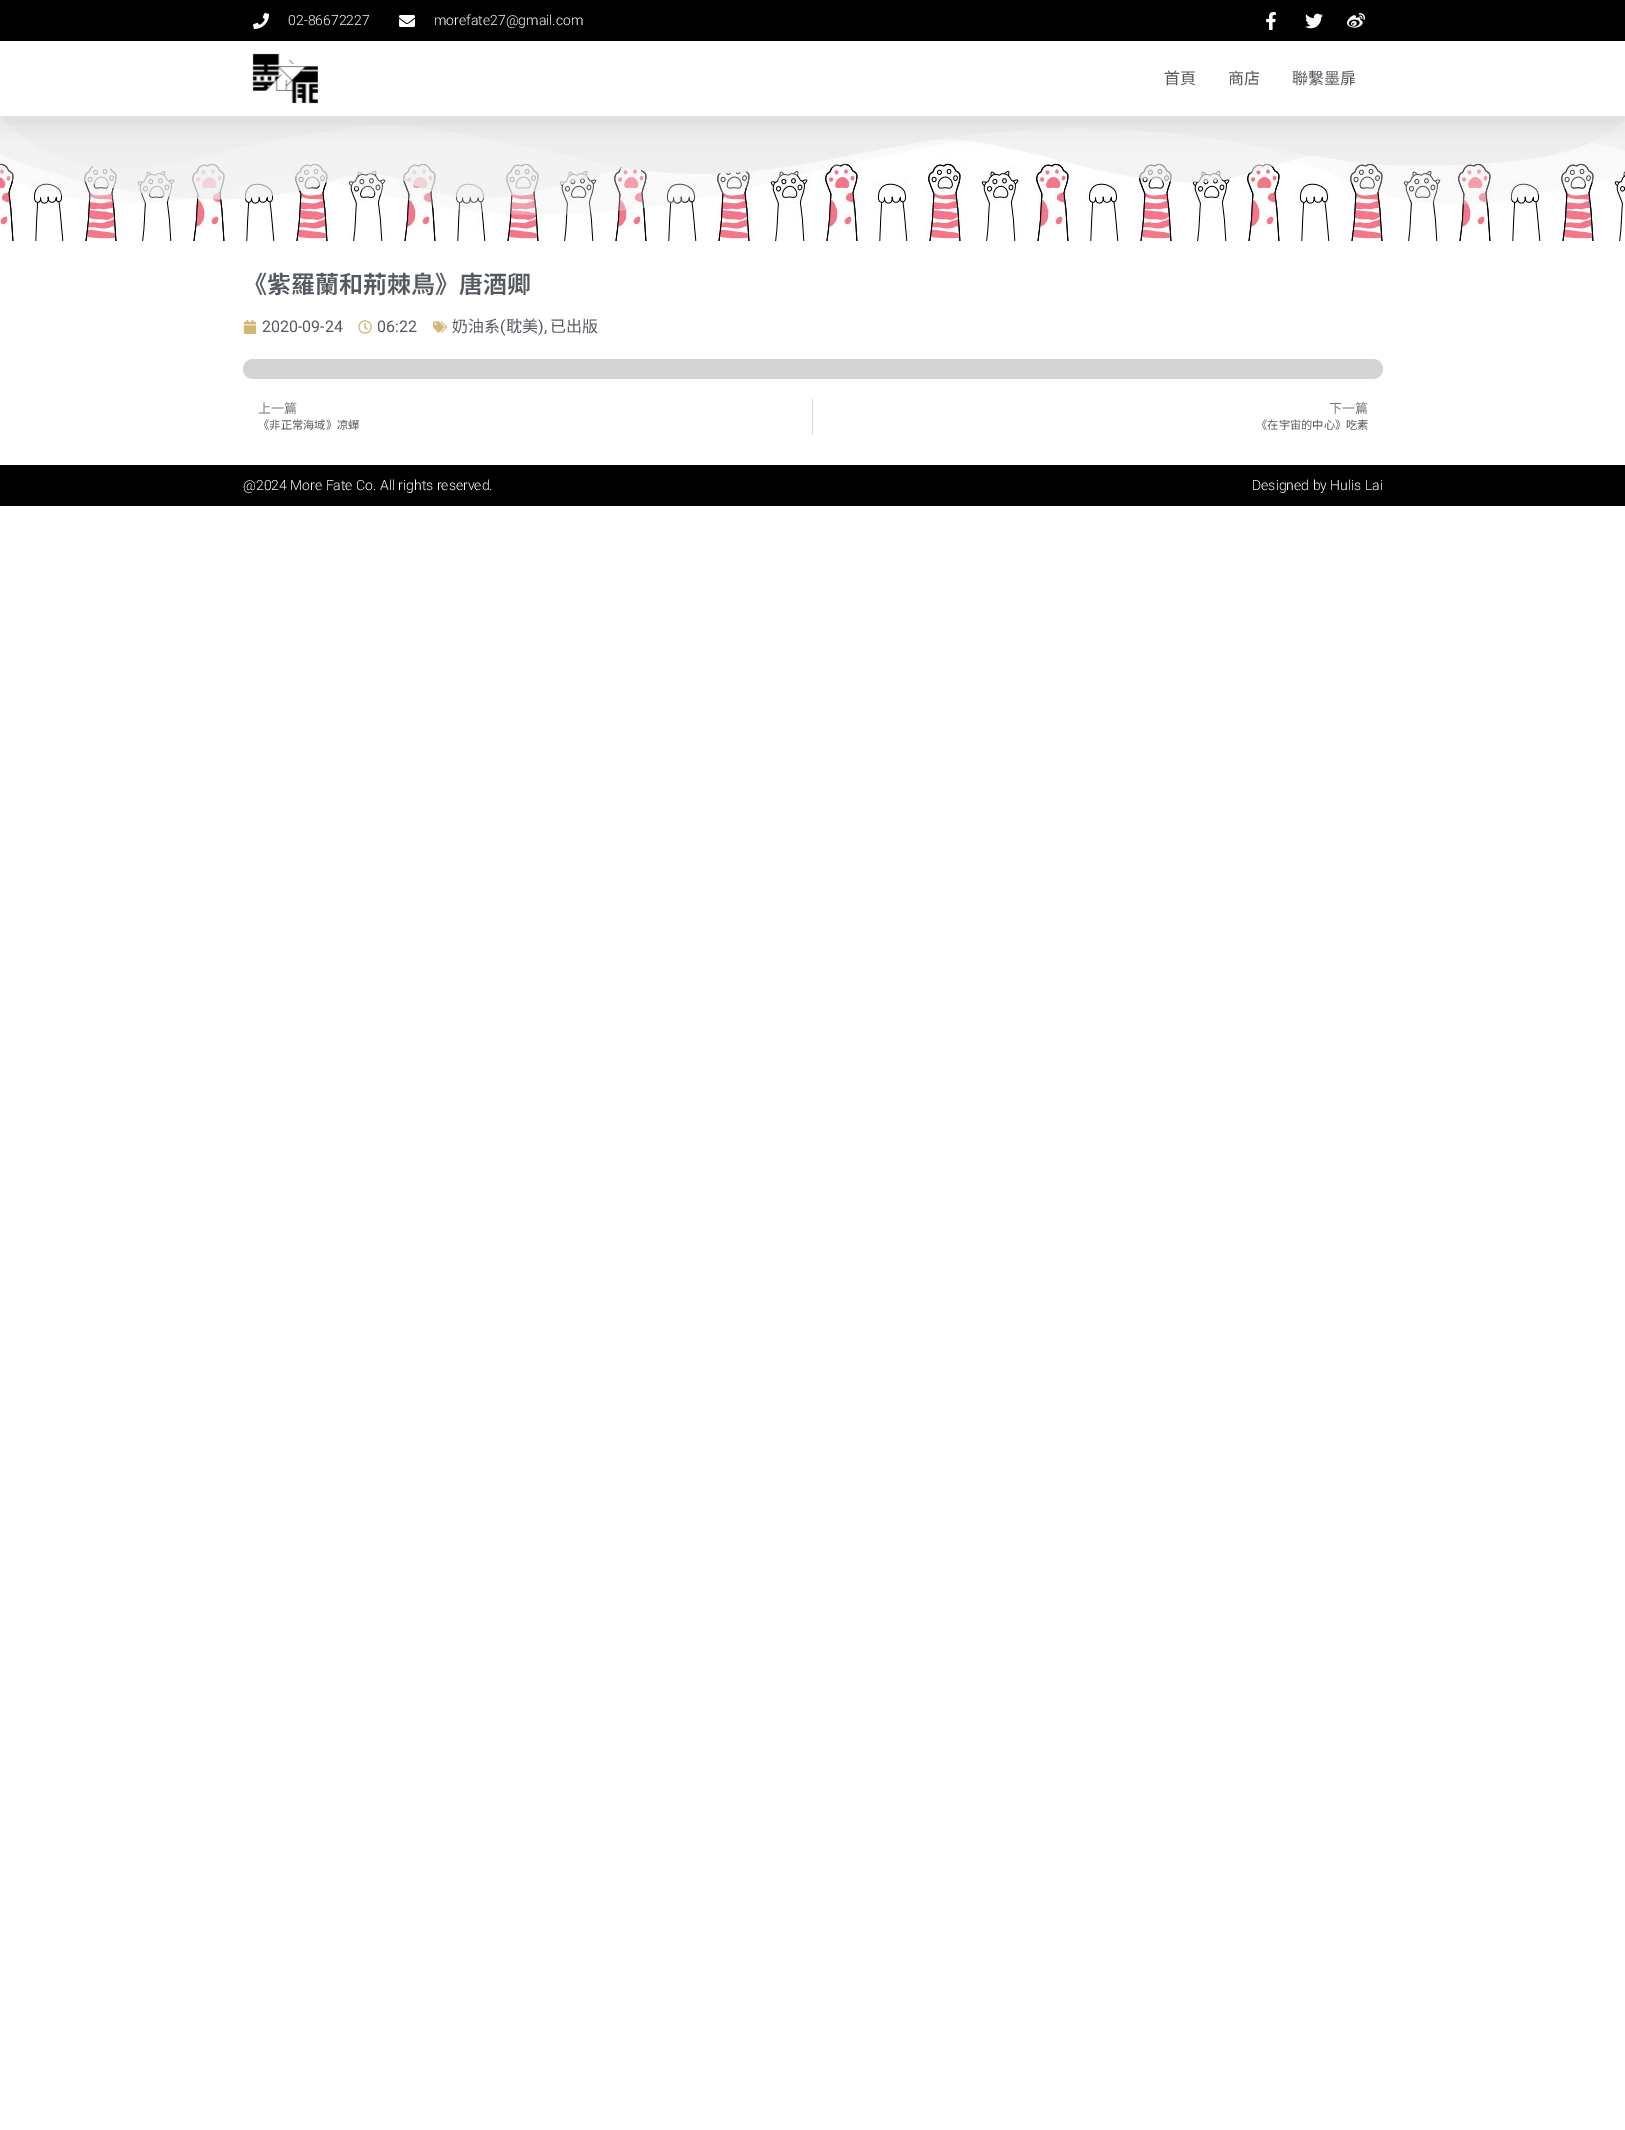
%!PS-Adobe-3.0
%%BoundingBox: 0 0 1625 2130
%%LanguageLevel: 3
%%Pages: 1
%%EndComments
%%BeginProlog
/setink { dup -16 bitshift 255 div exch dup -8 bitshift 255 and 255 div exch 255 and 255 div setrgbcolor } def
/usefont { [ exch dup neg 0 0 3 -1 roll 0 0 ] selectfont } def
/setalpha { dup .setfillconstantalpha .setstrokeconstantalpha } def
/rrect { 5 dict begin { /r /h /w /y /x } { exch def } forall
  x r add y moveto x w add y 2 copy h add r arct x w add y h add x 1 index r arct
  x y h add x y r arct x y 2 copy exch w add exch r arct closepath end } def
/softshadow { 12 dict begin { /a /b /q /h /w /y /x } { exch def } forall gsave /was 0 def
  9 -2 -9 { dup b mul 4 div /e exch def 1 sub .425 mul 2.718 exch exp 1 add a .99 .min exch div /now exch def
    1 1 now sub 1 was sub div sub setalpha /was now def
    w h .min e 2 mul add 0 gt { x e sub y e sub w e 2 mul add h e 2 mul add
      q e add b .6 mul add w h .min 2 div e add .min 0 .max rrect fill } if } for grestore end } def
/drawimage { 5 dict begin { /h /w /y /x /name } { exch def } forall
  gsave x y translate w h scale
  w h 8 [w 0 0 h 0 0] name (r) file false 3 colorimage grestore end } def
%%EndProlog
%%BeginSetup
<< /PageSize [1625 2130] /PageUsesTransparency true >> setpagedevice
%%EndSetup
%%Page: 1 1
0 .pushpdf14devicefilter
0 2130 translate 1 -1 scale
4 setmiterlimit
16#FFFFFF setink
0 0 1625 2130 rectfill
(img7.raw) 0 156 1625 85 drawimage
(img8.raw) 0 116 1625 99 drawimage
16#000000 setink
0 5 1625 116 0 15 0.1 softshadow
0 0 1625 41 rectfill
(img1.raw) 253 13 16 16 drawimage
/Roboto-Light 14 usefont
16#FFFFFF setink
288 25 moveto (02-86672227) show
(img2.raw) 399 15 16 12 drawimage
434 25 moveto (morefate27@gmail.com) show
(img3.raw) 1266 12 10 18 drawimage
(img4.raw) 1305 13 18 16 drawimage
(img5.raw) 1347 13 18 15 drawimage
0 41 1625 75 rectfill
(img6.raw) 252 53 66 51 drawimage
/NotoSansCJKTC-Regular 16 usefont
16#54595F setink
[
    [(首頁) 1164 84]
    [(商店) 1228 84]
    [(聯繫墨扉) 1292 84]
] { aload pop moveto show } forall
/NotoSansTC-SemiBold 24 usefont
243 293 moveto (《紫羅蘭和荊棘鳥》唐酒卿) show
(img9.raw) 243 320 14 14 drawimage
/Roboto-Regular 16 usefont
262 332 moveto (2020-09-24) show
(img10.raw) 358 320 14 14 drawimage
377 332 moveto (06:22) show
(img11.raw) 433 321 14 12 drawimage
/NotoSansCJKTC-Regular 16 usefont
452 332 moveto (奶油系) show
/Roboto-Regular 16 usefont
500 332 moveto (\() show
/NotoSansCJKTC-Regular 16 usefont
506 332 moveto (耽美) show
/Roboto-Regular 16 usefont
538 332 moveto (\),) show
/NotoSansCJKTC-Regular 16 usefont
550 332 moveto (已出版) show
16#D4D4D4 setink
243 359 1140 20 10 rrect fill
/NotoSansCJKTC-Regular 13 usefont
16#7A7A7A setink
258 413 moveto (上一篇) show
/NotoSansCJKTC-Regular 11.25 usefont
16#54595F setink
258 429 moveto (《非正常海域》凉蟬) show
16#D5D8DC setink
812 399 1 36 rectfill
/NotoSansCJKTC-Regular 13 usefont
16#7A7A7A setink
1329 413 moveto (下一篇) show
/NotoSansCJKTC-Regular 11.25 usefont
16#54595F setink
1256 429 moveto (《在宇宙的中心》吃素) show
16#000000 setink
0 465 1625 41 rectfill
/Roboto-Light 14 usefont
16#FFFFFF setink
243 490 moveto (@2024 More Fate Co. All rights reserved.) show
1252 490 moveto (Designed by Hulis Lai) show
.poppdf14devicefilter showpage
%%EOF
